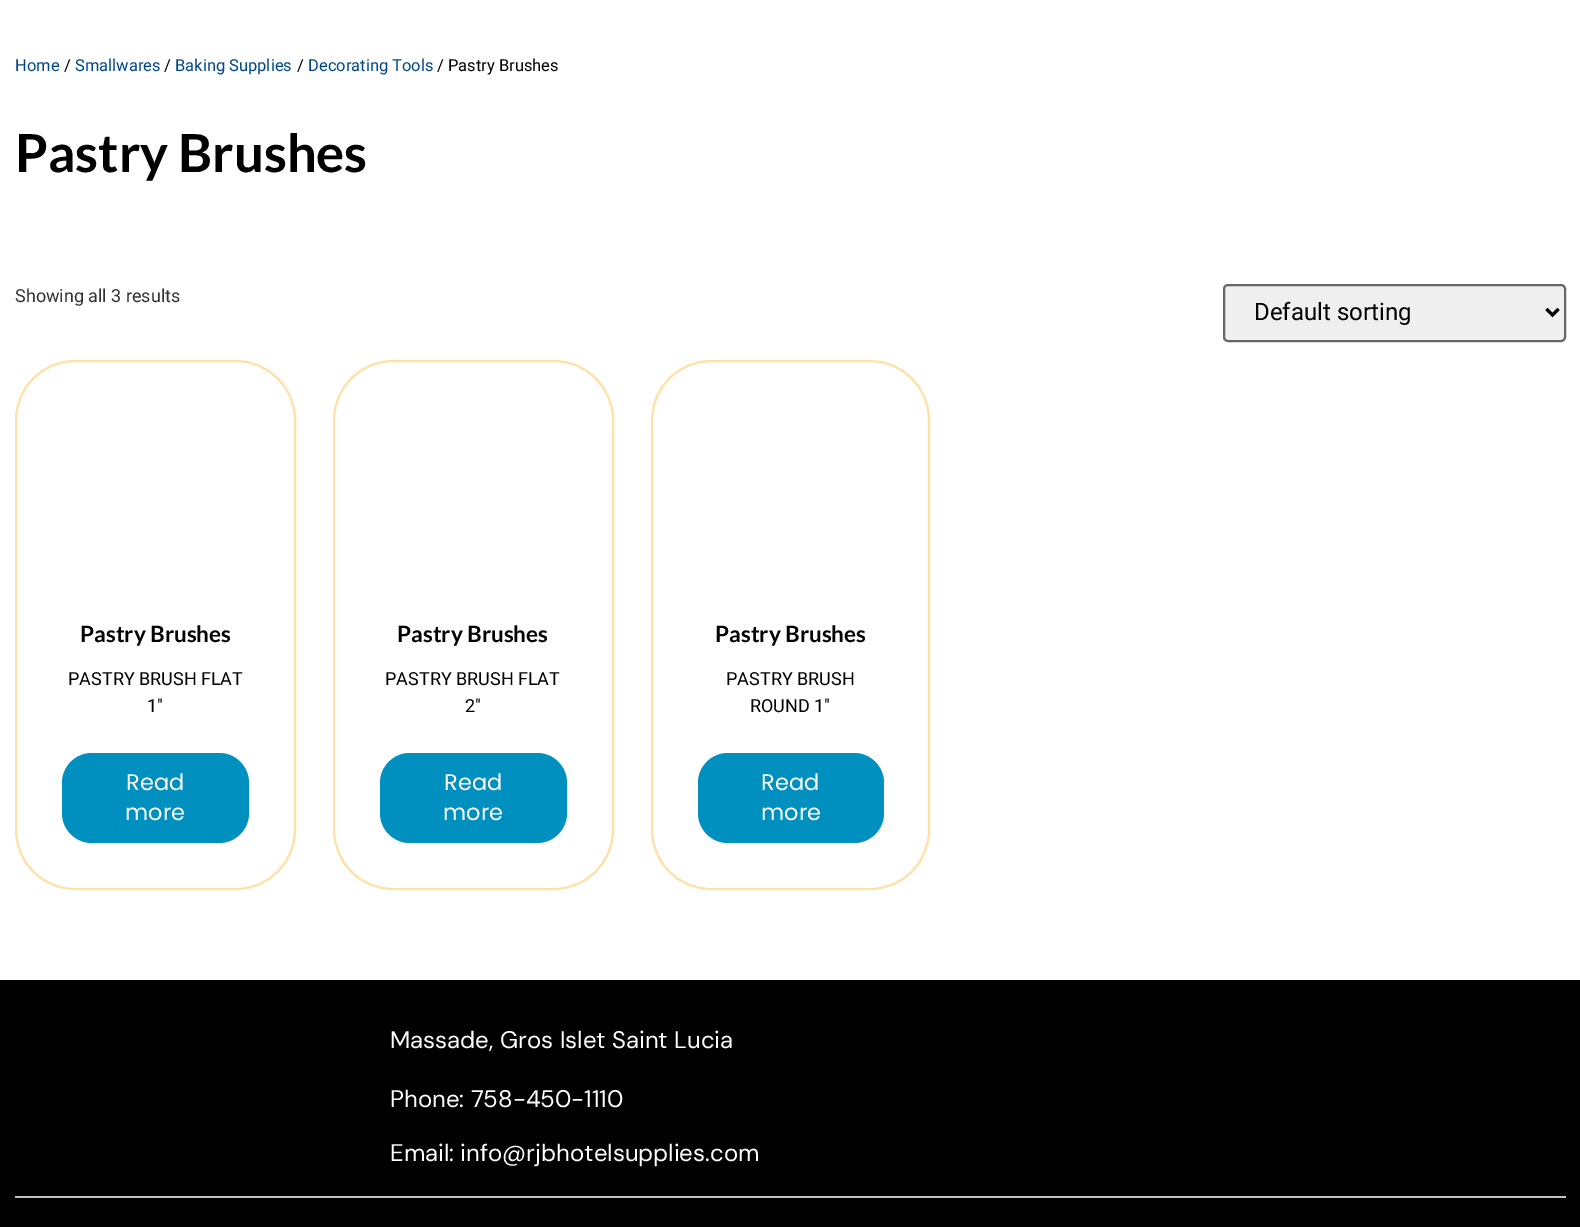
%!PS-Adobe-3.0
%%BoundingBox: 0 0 1580 1227
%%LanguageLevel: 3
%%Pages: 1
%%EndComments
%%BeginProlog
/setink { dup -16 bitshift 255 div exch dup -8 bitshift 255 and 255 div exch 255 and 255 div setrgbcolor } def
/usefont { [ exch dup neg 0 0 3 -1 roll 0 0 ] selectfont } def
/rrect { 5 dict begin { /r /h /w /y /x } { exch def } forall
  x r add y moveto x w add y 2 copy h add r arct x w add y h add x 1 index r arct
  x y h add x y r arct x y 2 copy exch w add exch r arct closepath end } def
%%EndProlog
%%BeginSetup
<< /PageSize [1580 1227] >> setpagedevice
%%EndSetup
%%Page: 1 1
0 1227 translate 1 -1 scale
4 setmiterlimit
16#FFFFFF setink
0 0 1580 1227 rectfill
/Roboto-Regular 16.5 usefont
16#00478A setink
15 71 moveto (Home) show
16#000000 setink
64 71 moveto (/) show
16#00478A setink
75 71 moveto (Smallwares) show
16#000000 setink
164 71 moveto (/) show
16#00478A setink
175 71 moveto (Baking Supplies) show
16#000000 setink
297 71 moveto (/) show
16#00478A setink
308 71 moveto (Decorating Tools) show
16#000000 setink
437 71 moveto (/ Pastry Brushes) show
/Lato-Bold 52.5 usefont
15 172 moveto (Pastry Brushes) show
/Roboto-Regular 18 usefont
16#333333 setink
15 302 moveto (Showing all 3 results) show
16#EFEFEF setink
1224 285 341 56 4 rrect gsave fill grestore
16#666666 setink
2 setlinewidth
stroke
16#000000 setink
3 setlinewidth
1546.5 309 moveto 1552.5 315 lineto 1558.5 309 lineto stroke
/Roboto-Regular 24 usefont
1254 320 moveto (Default sorting) show
16#FFE1A5 setink
2 setlinewidth
16 361 279 528 59 rrect stroke
/Lato-Bold 22.5 usefont
16#000000 setink
80 642 moveto (Pastry Brushes) show
/Roboto-Regular 18 usefont
68 685 moveto (PASTRY BRUSH FLAT) show
147 712 moveto (1″) show
16#0090C0 setink
62 753 187 90 30 rrect fill
/Poppins-Regular 22.5 usefont
16#FFFFFF setink
126 790 moveto (Read) show
125 820 moveto (more) show
16#FFE1A5 setink
334 361 279 528 59 rrect stroke
/Lato-Bold 22.5 usefont
16#000000 setink
397 642 moveto (Pastry Brushes) show
/Roboto-Regular 18 usefont
385 685 moveto (PASTRY BRUSH FLAT) show
465 712 moveto (2″) show
16#0090C0 setink
380 753 187 90 30 rrect fill
/Poppins-Regular 22.5 usefont
16#FFFFFF setink
444 790 moveto (Read) show
443 820 moveto (more) show
16#FFE1A5 setink
652 361 277 528 59 rrect stroke
/Lato-Bold 22.5 usefont
16#000000 setink
715 642 moveto (Pastry Brushes) show
/Roboto-Regular 18 usefont
726 685 moveto (PASTRY BRUSH) show
750 712 moveto (ROUND 1″) show
16#0090C0 setink
698 753 186 90 30 rrect fill
/Poppins-Regular 22.5 usefont
16#FFFFFF setink
761 790 moveto (Read) show
761 820 moveto (more) show
16#000000 setink
0 980 1580 247 rectfill
/DMSans-Regular 24 usefont
16#FFFFFF setink
[
    [(Massade, Gros Islet Saint Lucia) 390 1048]
    [(Phone: 758-450-1110) 390 1107]
    [(Email: info@rjbhotelsupplies.com) 390 1161]
] { aload pop moveto show } forall
16#C2C2C2 setink
15 1196 1551 2 rectfill
showpage
%%EOF
